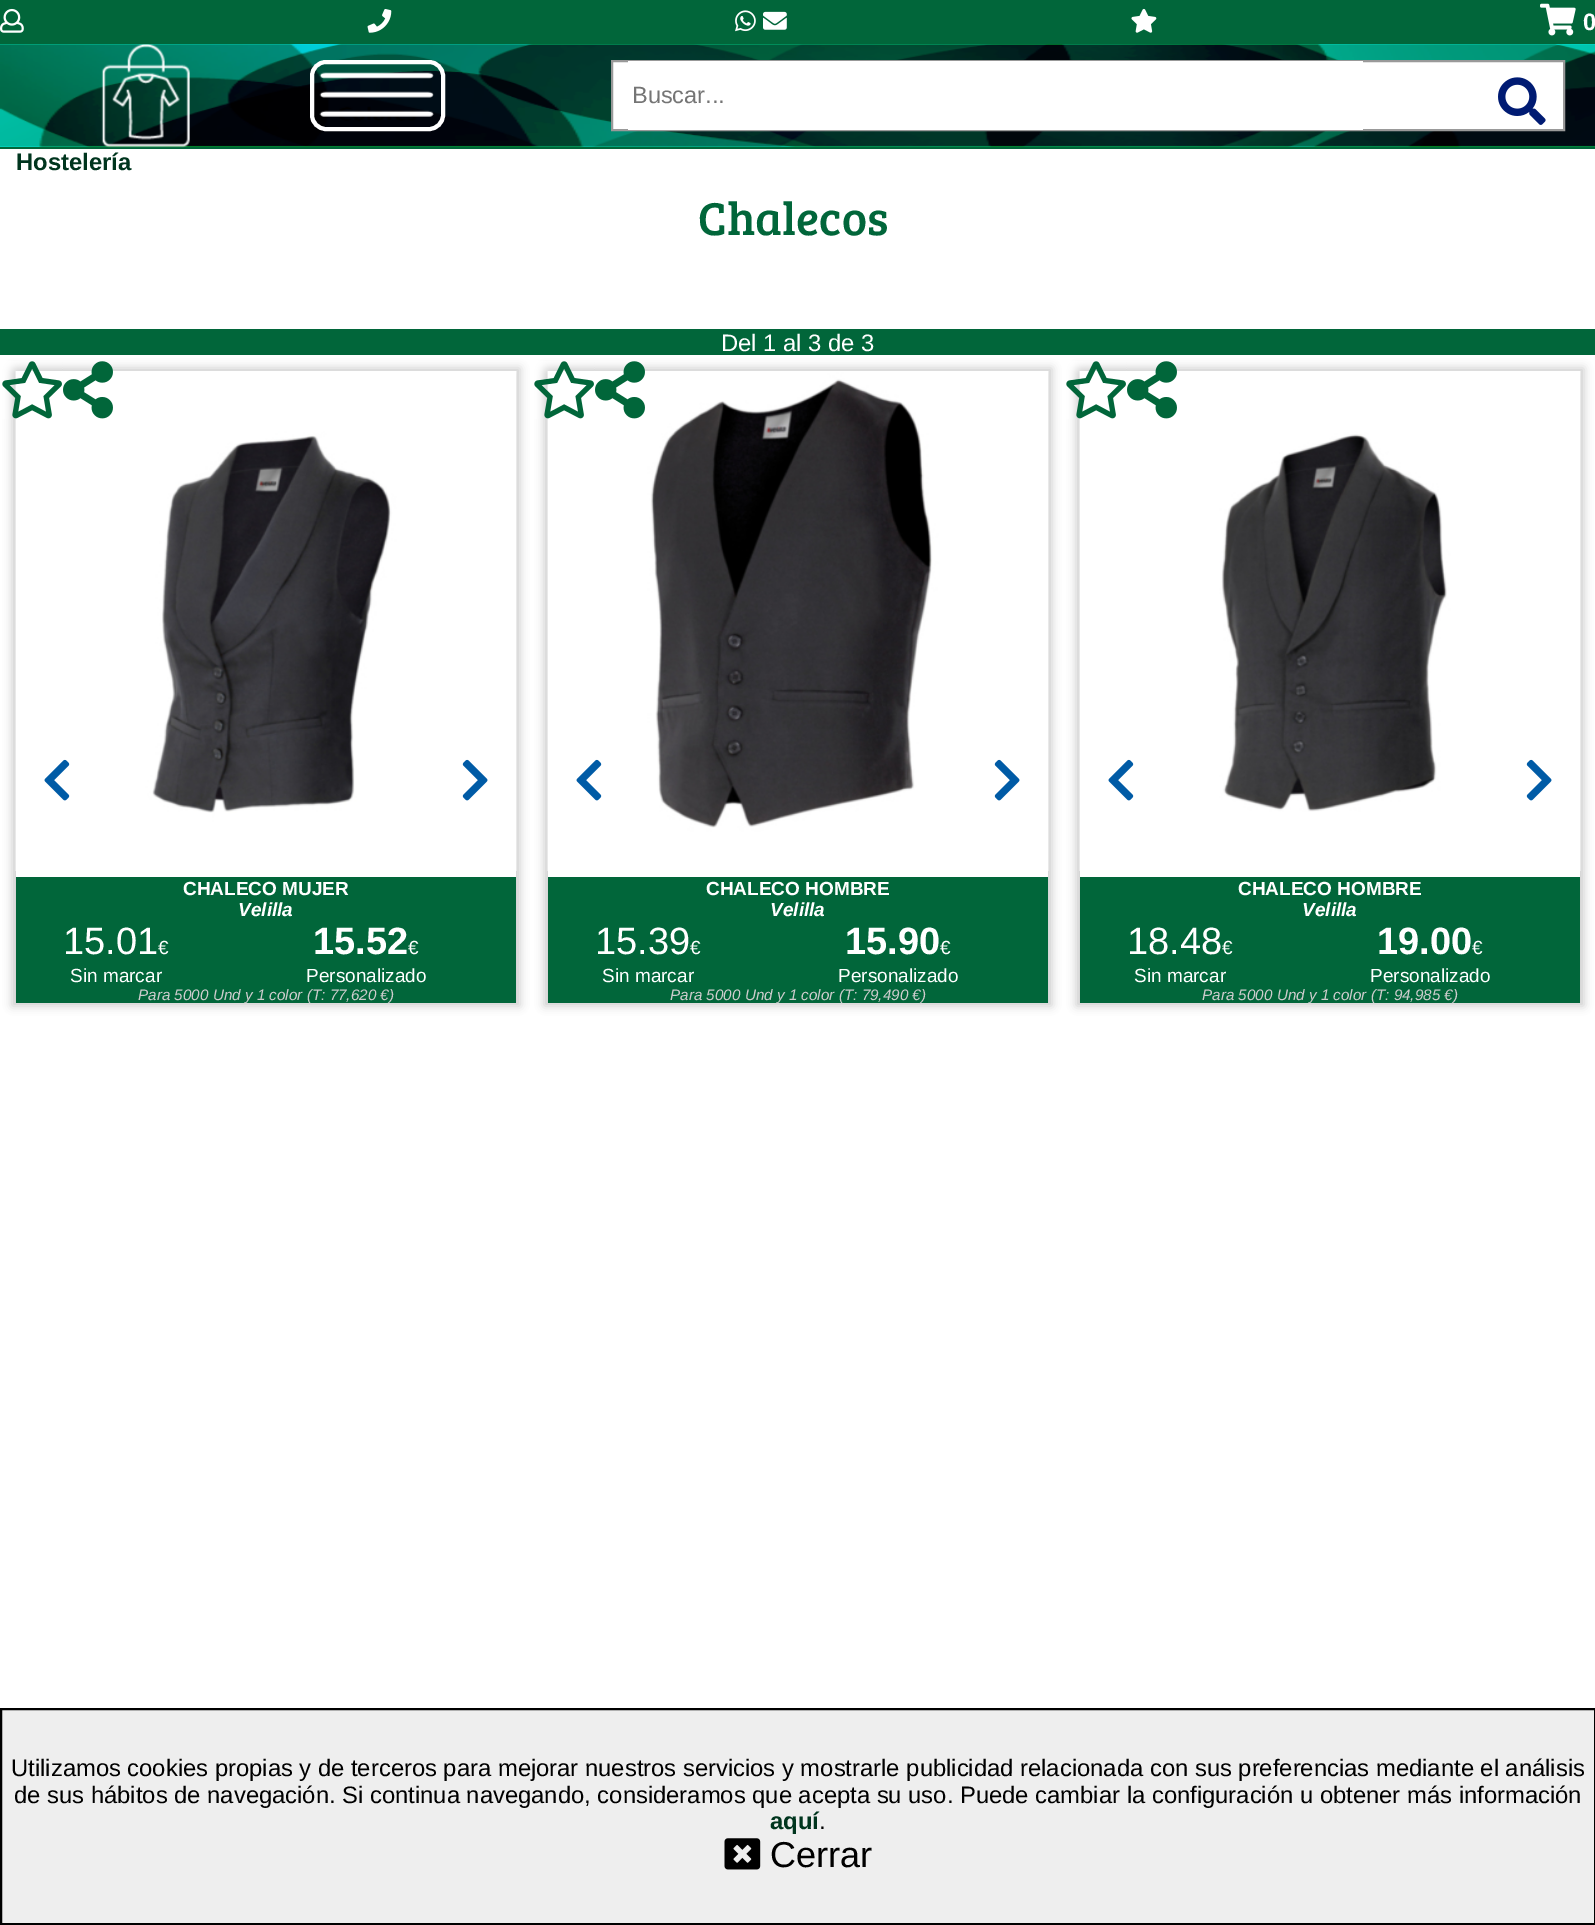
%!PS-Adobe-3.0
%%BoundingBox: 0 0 1595 1925
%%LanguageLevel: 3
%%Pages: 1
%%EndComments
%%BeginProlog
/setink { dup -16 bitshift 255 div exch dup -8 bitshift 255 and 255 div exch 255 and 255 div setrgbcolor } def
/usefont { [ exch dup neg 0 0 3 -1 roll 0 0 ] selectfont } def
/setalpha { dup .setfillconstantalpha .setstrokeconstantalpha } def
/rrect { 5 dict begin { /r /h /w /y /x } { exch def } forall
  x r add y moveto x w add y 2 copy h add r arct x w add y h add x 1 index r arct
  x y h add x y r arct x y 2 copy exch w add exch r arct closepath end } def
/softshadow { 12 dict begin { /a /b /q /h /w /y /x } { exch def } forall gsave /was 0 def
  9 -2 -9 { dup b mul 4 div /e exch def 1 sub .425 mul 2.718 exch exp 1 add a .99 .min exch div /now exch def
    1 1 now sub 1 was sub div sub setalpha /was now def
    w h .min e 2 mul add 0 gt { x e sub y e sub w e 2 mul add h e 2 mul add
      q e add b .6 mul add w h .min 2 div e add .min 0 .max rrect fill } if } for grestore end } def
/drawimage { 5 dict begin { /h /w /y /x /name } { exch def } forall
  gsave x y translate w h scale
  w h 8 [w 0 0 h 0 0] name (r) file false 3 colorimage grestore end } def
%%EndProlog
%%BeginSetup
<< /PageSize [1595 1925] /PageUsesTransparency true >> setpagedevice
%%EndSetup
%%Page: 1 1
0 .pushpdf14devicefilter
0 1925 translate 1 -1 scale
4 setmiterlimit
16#FFFFFF setink
0 0 1595 1925 rectfill
16#01663A setink
0 0 1595 44 rectfill
(img1.raw) 0 8 24 25 drawimage
(img2.raw) 367 9 25 24 drawimage
(img3.raw) 735 10 21 22 drawimage
(img4.raw) 763 11 24 19 drawimage
(img5.raw) 1131 8 26 25 drawimage
(img6.raw) 1540 3 36 33 drawimage
/LiberationSans-Bold 23.8 usefont
16#FFFFFF setink
1583 30 moveto (0) show
(img7.raw) 0 44 1595 103 drawimage
16#01663A setink
0 147 1595 2 rectfill
(img8.raw) 101 44 89 104 drawimage
(img9.raw) 319 72 115 45 drawimage
16#FFFFFF setink
4 setlinewidth
312 62 131 67 14 rrect stroke
612 61 moveto 1564 61 lineto 1564 130 lineto 612 130 lineto closepath gsave fill grestore
16#999999 setink
2 setlinewidth
stroke
16#FFFFFF setink
628 61 735 69 rectfill
/LiberationSans-Regular 23.5 usefont
16#757575 setink
632 103 moveto (Buscar...) show
(img10.raw) 1498 77 48 48 drawimage
/LiberationSans-Bold 23.8 usefont
16#00351E setink
16 170 moveto (Hostelería) show
/BreeSerif-Regular 47.5 usefont
16#01663A setink
698 235 moveto (Chalecos) show
0 329 1595 26 rectfill
/LiberationSans-Regular 23.8 usefont
16#FFFFFF setink
721 351 moveto (Del 1 al 3 de 3) show
gsave
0 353 moveto 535 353 lineto 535 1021 lineto 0 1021 lineto closepath 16 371 moveto 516 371 lineto 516 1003 lineto 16 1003 lineto closepath eoclip newpath
16#CCCCCC setink
12 368 508 638 0 4.5 1 softshadow
grestore
(img11.raw) 15 371 502 500 drawimage
(img12.raw) 44 759 26 42 drawimage
(img13.raw) 462 759 26 42 drawimage
16#01663A setink
16 877 500 126 rectfill
(img14.raw) 2 361 60 58 drawimage
(img15.raw) 63 361 50 58 drawimage
/LiberationSans-Bold 19 usefont
16#FFFFFF setink
183 895 moveto (CHALECO MUJER) show
/LiberationSans-BoldItalic 19 usefont
238 916 moveto (Velilla) show
/LiberationSans-Regular 38 usefont
63 954 moveto (15.01) show
/LiberationSans-Regular 19 usefont
158 954 moveto (€) show
/LiberationSans-Bold 38 usefont
313 954 moveto (15.52) show
/LiberationSans-Regular 19 usefont
[
    [(€) 408 954]
    [(Sin marcar) 70 982]
    [(Personalizado) 306 982]
] { aload pop moveto show } forall
/LiberationSans-Italic 15.25 usefont
16#CCCCCC setink
138 1000 moveto (Para 5000 Und y 1 color \(T: 77,620 €\)) show
gsave
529 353 moveto 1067 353 lineto 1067 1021 lineto 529 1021 lineto closepath 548 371 moveto 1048 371 lineto 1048 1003 lineto 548 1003 lineto closepath eoclip newpath
544 368 508 638 0 4.5 1 softshadow
grestore
(img16.raw) 547 371 502 500 drawimage
(img12.raw) 576 759 26 42 drawimage
(img13.raw) 994 759 26 42 drawimage
16#01663A setink
548 877 500 126 rectfill
(img14.raw) 534 361 60 58 drawimage
(img15.raw) 595 361 50 58 drawimage
/LiberationSans-Bold 19 usefont
16#FFFFFF setink
706 895 moveto (CHALECO HOMBRE) show
/LiberationSans-BoldItalic 19 usefont
770 916 moveto (Velilla) show
/LiberationSans-Regular 38 usefont
595 954 moveto (15.39) show
/LiberationSans-Regular 19 usefont
690 954 moveto (€) show
/LiberationSans-Bold 38 usefont
845 954 moveto (15.90) show
/LiberationSans-Regular 19 usefont
[
    [(€) 940 954]
    [(Sin marcar) 602 982]
    [(Personalizado) 838 982]
] { aload pop moveto show } forall
/LiberationSans-Italic 15.25 usefont
16#CCCCCC setink
670 1000 moveto (Para 5000 Und y 1 color \(T: 79,490 €\)) show
gsave
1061 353 moveto 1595 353 lineto 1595 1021 lineto 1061 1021 lineto closepath 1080 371 moveto 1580 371 lineto 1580 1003 lineto 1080 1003 lineto closepath eoclip newpath
1076 368 508 638 0 4.5 1 softshadow
grestore
(img17.raw) 1079 371 502 500 drawimage
(img12.raw) 1108 759 26 42 drawimage
(img13.raw) 1526 759 26 42 drawimage
16#01663A setink
1080 877 500 126 rectfill
(img14.raw) 1066 361 60 58 drawimage
(img15.raw) 1127 361 50 58 drawimage
/LiberationSans-Bold 19 usefont
16#FFFFFF setink
1238 895 moveto (CHALECO HOMBRE) show
/LiberationSans-BoldItalic 19 usefont
1302 916 moveto (Velilla) show
/LiberationSans-Regular 38 usefont
1127 954 moveto (18.48) show
/LiberationSans-Regular 19 usefont
1222 954 moveto (€) show
/LiberationSans-Bold 38 usefont
1377 954 moveto (19.00) show
/LiberationSans-Regular 19 usefont
[
    [(€) 1472 954]
    [(Sin marcar) 1134 982]
    [(Personalizado) 1370 982]
] { aload pop moveto show } forall
/LiberationSans-Italic 15.25 usefont
16#CCCCCC setink
1202 1000 moveto (Para 5000 Und y 1 color \(T: 94,985 €\)) show
16#EEEEEE setink
1 1709 moveto 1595 1709 lineto 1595 1924 lineto 1 1924 lineto closepath gsave fill grestore
16#000000 setink
stroke
/LiberationSans-Regular 23.8 usefont
11 1776 moveto (Utilizamos cookies propias y de terceros para mejorar nuestros servicios y mostrarle publicidad relacionada con sus preferencias mediante el análisis) show
14 1803 moveto (de sus hábitos de navegación. Si continua navegando, consideramos que acepta su uso. Puede cambiar la configuración u obtener más información) show
/LiberationSans-Bold 23.8 usefont
16#00351E setink
770 1829 moveto (aquí) show
/LiberationSans-Regular 23.8 usefont
16#000000 setink
819 1829 moveto (.) show
(img18.raw) 724 1838 37 32 drawimage
/LiberationSans-Regular 36 usefont
770 1867 moveto (Cerrar) show
.poppdf14devicefilter showpage
%%EOF
